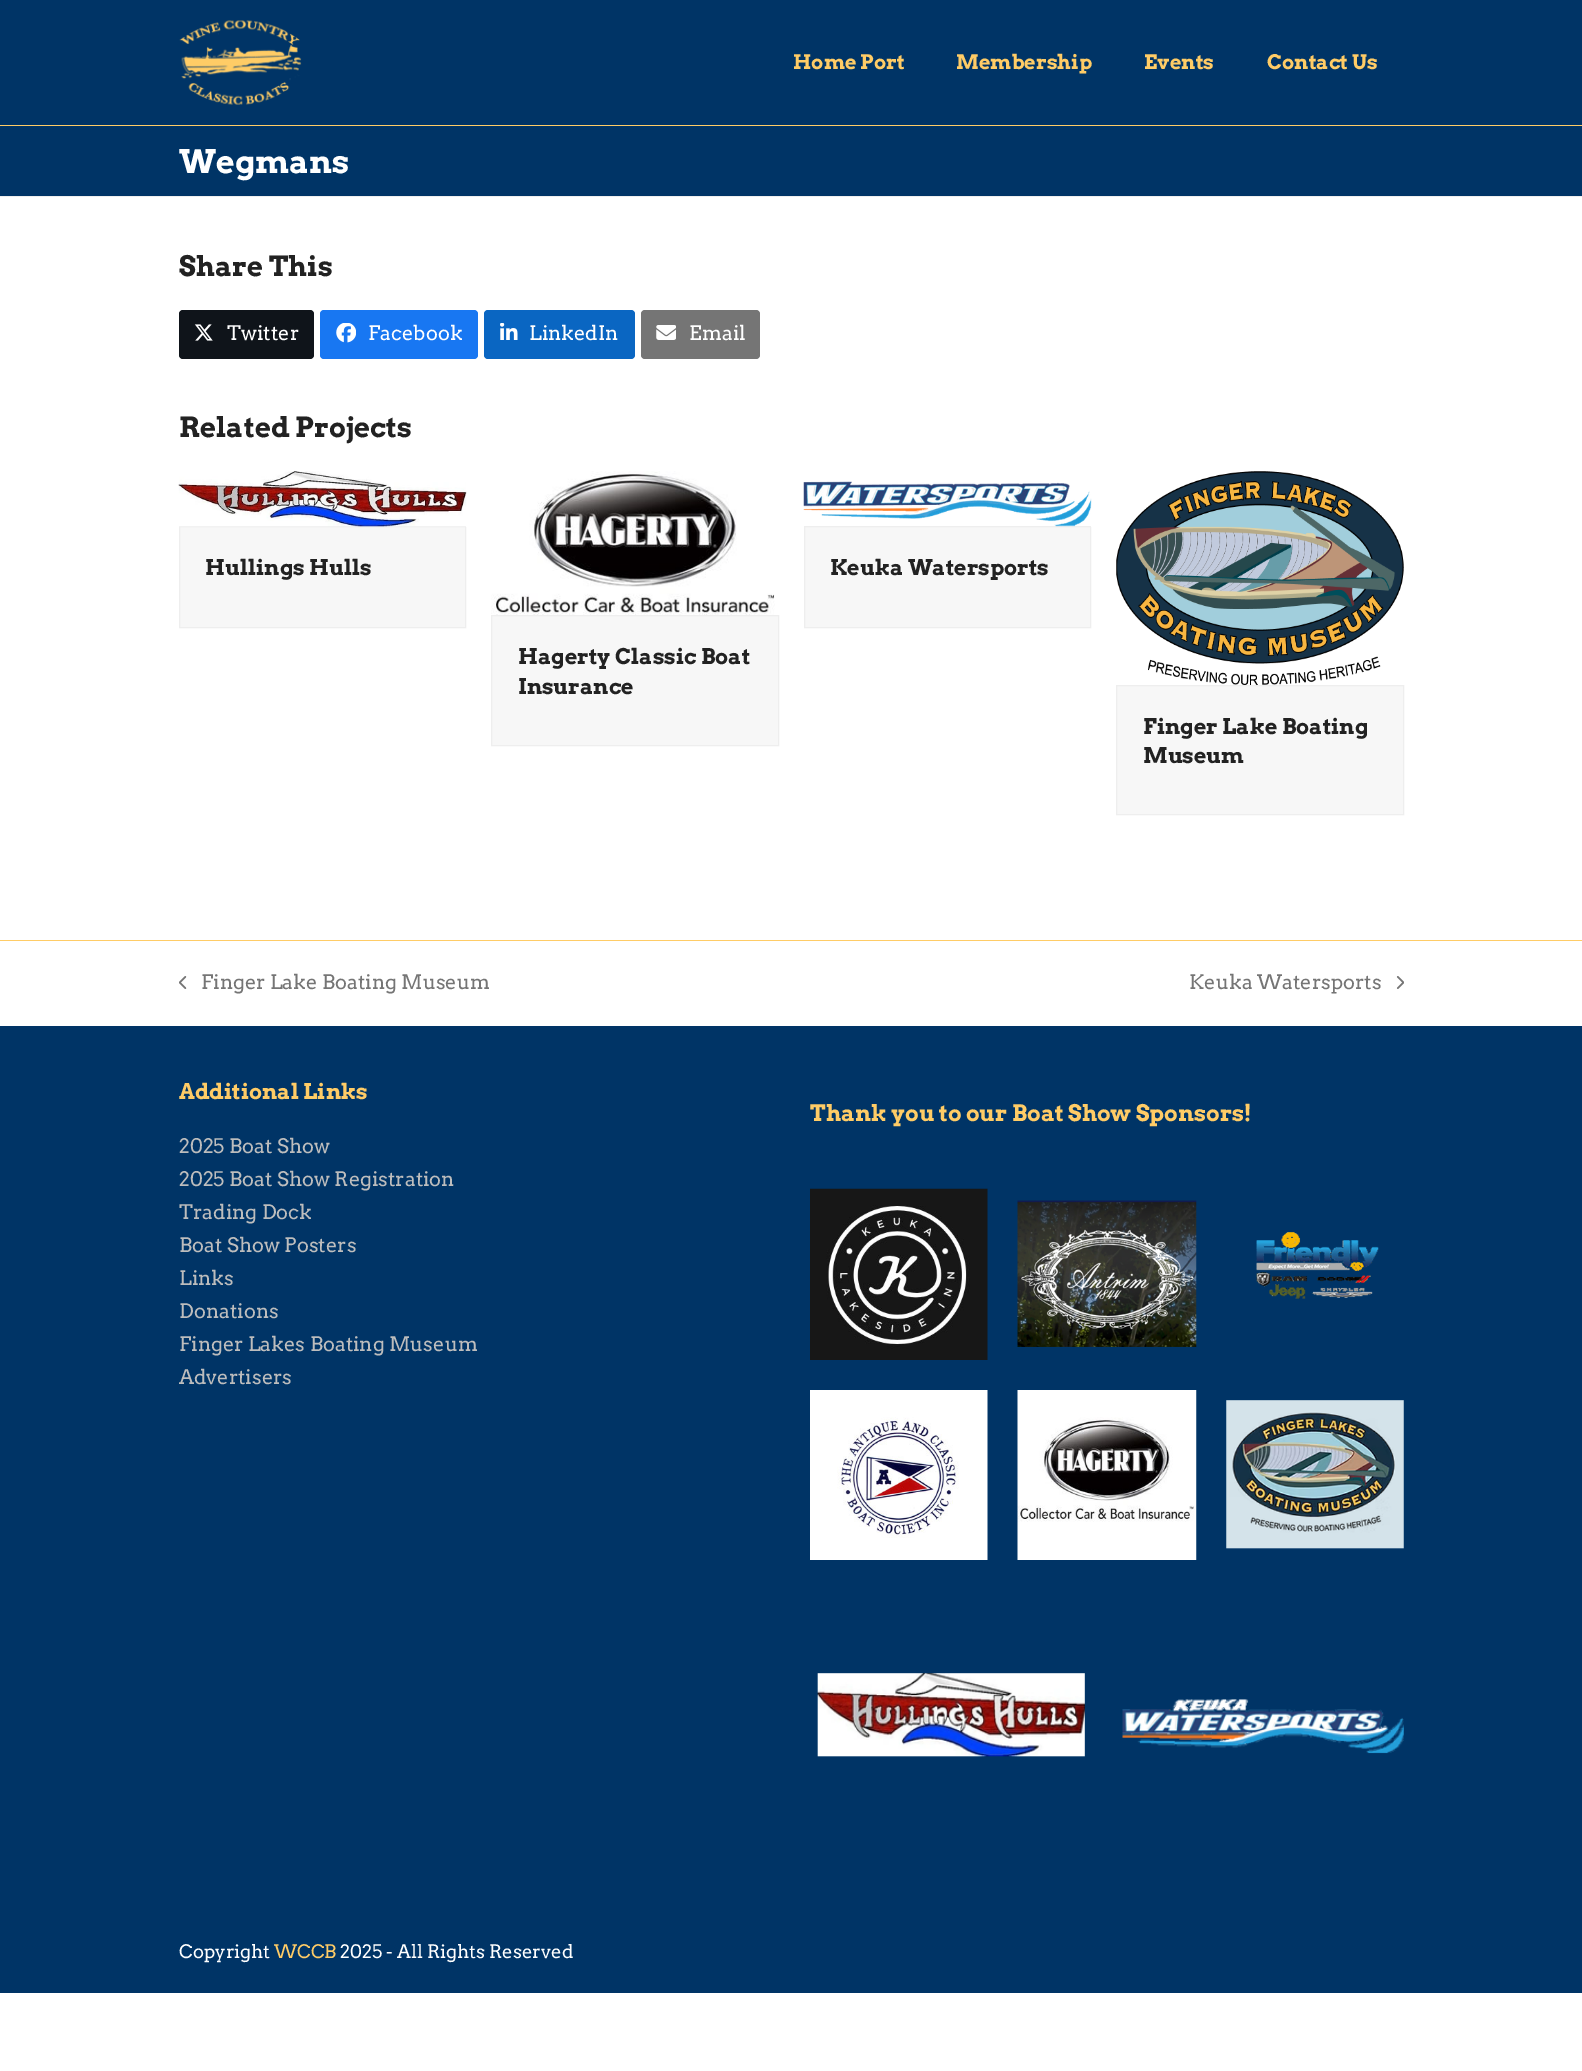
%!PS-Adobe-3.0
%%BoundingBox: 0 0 1582 2071
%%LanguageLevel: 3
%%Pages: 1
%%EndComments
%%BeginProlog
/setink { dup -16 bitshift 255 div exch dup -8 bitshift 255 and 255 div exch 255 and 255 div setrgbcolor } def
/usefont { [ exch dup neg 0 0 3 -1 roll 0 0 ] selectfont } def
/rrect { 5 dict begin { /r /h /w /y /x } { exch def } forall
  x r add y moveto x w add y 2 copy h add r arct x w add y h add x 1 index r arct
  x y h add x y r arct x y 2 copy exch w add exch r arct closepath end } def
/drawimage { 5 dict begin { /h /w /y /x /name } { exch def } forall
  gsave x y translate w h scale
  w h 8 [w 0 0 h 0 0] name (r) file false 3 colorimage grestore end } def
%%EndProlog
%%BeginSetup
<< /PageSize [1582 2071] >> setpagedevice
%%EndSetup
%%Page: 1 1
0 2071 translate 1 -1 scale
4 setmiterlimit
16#FFFFFF setink
0 0 1582 2071 rectfill
16#003466 setink
0 0 1582 125 rectfill
(img1.raw) 179 20 123 85 drawimage
/Arvo-Bold 20 usefont
16#FFCC66 setink
[
    [(Home Port) 793 69]
    [(Membership) 956 69]
    [(Events) 1144 69]
    [(Contact Us) 1267 69]
] { aload pop moveto show } forall
[
    [0 126 1582 70 16#003466]
    [0 125 1582 1 16#FFCC66]
    [0 196 1582 1 16#EEEEEE]
] { aload pop setink rectfill } forall
/Arvo-Bold 32.25 usefont
16#FFFFFF setink
179 173 moveto (Wegmans) show
/Arvo-Bold 27.75 usefont
16#222222 setink
179 276 moveto (Share This) show
16#0F141A setink
179 310 135 49 4 rrect fill
(img2.raw) 194 324 19 17 drawimage
/Arvo-Regular 20 usefont
16#FFFFFF setink
227 340 moveto (Twitter) show
16#1877F2 setink
320 310 158 49 4 rrect fill
(img3.raw) 336 323 20 20 drawimage
16#FFFFFF setink
368 340 moveto (Facebook) show
16#0A66C2 setink
484 310 151 49 4 rrect fill
(img4.raw) 500 323 18 17 drawimage
16#FFFFFF setink
529 340 moveto (LinkedIn) show
16#757575 setink
641 310 119 49 4 rrect fill
(img5.raw) 656 325 20 15 drawimage
16#FFFFFF setink
689 340 moveto (Email) show
/Arvo-Bold 27.75 usefont
16#222222 setink
179 437 moveto (Related Projects) show
16#F7F7F7 setink
179.5 526.5 moveto 465.5 526.5 lineto 465.5 627.5 lineto 179.5 627.5 lineto closepath gsave fill grestore
16#EEEEEE setink
stroke
(img6.raw) 178 471 289 56 drawimage
/Arvo-Bold 21.5 usefont
16#222222 setink
205 575 moveto (Hullings Hulls) show
16#F7F7F7 setink
804.5 526.5 moveto 1090.5 526.5 lineto 1090.5 627.5 lineto 804.5 627.5 lineto closepath gsave fill grestore
16#EEEEEE setink
stroke
(img7.raw) 803 481 289 46 drawimage
16#222222 setink
830 575 moveto (Keuka Watersports) show
(img8.raw) 491 471 284 144 drawimage
16#F7F7F7 setink
491.5 615.5 moveto 778.5 615.5 lineto 778.5 745.5 lineto 491.5 745.5 lineto closepath gsave fill grestore
16#EEEEEE setink
stroke
16#222222 setink
518 664 moveto (Hagerty Classic Boat) show
518 694 moveto (Insurance) show
(img9.raw) 1116 471 288 214 drawimage
16#F7F7F7 setink
1116.5 685.5 moveto 1403.5 685.5 lineto 1403.5 814.5 lineto 1116.5 814.5 lineto closepath gsave fill grestore
16#EEEEEE setink
stroke
16#222222 setink
1143 734 moveto (Finger Lake Boating) show
1143 763 moveto (Museum) show
16#FFCC66 setink
0 940 1582 1 rectfill
(img10.raw) 179 976 8 13 drawimage
/Arvo-Regular 20 usefont
16#757575 setink
201 989 moveto (Finger Lake Boating Museum) show
1189 989 moveto (Keuka Watersports) show
(img11.raw) 1396 976 8 13 drawimage
16#003466 setink
0 1026 1582 967 rectfill
/Arvo-Bold 21.5 usefont
16#FFCC66 setink
179 1099 moveto (Additional Links) show
/Arvo-Regular 20 usefont
16#BDBDBD setink
[
    [(2025 Boat Show) 179 1153]
    [(2025 Boat Show Registration) 179 1186]
    [(Trading Dock) 179 1219]
    [(Boat Show Posters) 179 1252]
    [(Links) 179 1285]
    [(Donations) 179 1318]
    [(Finger Lakes Boating Museum) 179 1351]
    [(Advertisers) 179 1384]
] { aload pop moveto show } forall
/Arvo-Bold 22.5 usefont
16#FFCC66 setink
810 1121 moveto (Thank you to our Boat Show Sponsors!) show
(img12.raw) 810 1188 178 172 drawimage
(img13.raw) 1017 1200 180 147 drawimage
(img14.raw) 1256 1232 123 67 drawimage
(img15.raw) 810 1390 178 170 drawimage
(img16.raw) 1017 1390 180 170 drawimage
(img17.raw) 1226 1400 178 149 drawimage
(img18.raw) 817 1673 268 84 drawimage
(img19.raw) 1122 1699 282 55 drawimage
/Arvo-Regular 18.5 usefont
16#FFFFFF setink
179 1958 moveto (Copyright) show
16#FFCC66 setink
274 1958 moveto (WCCB) show
16#FFFFFF setink
340 1958 moveto (2025 - All Rights Reserved) show
showpage
%%EOF
